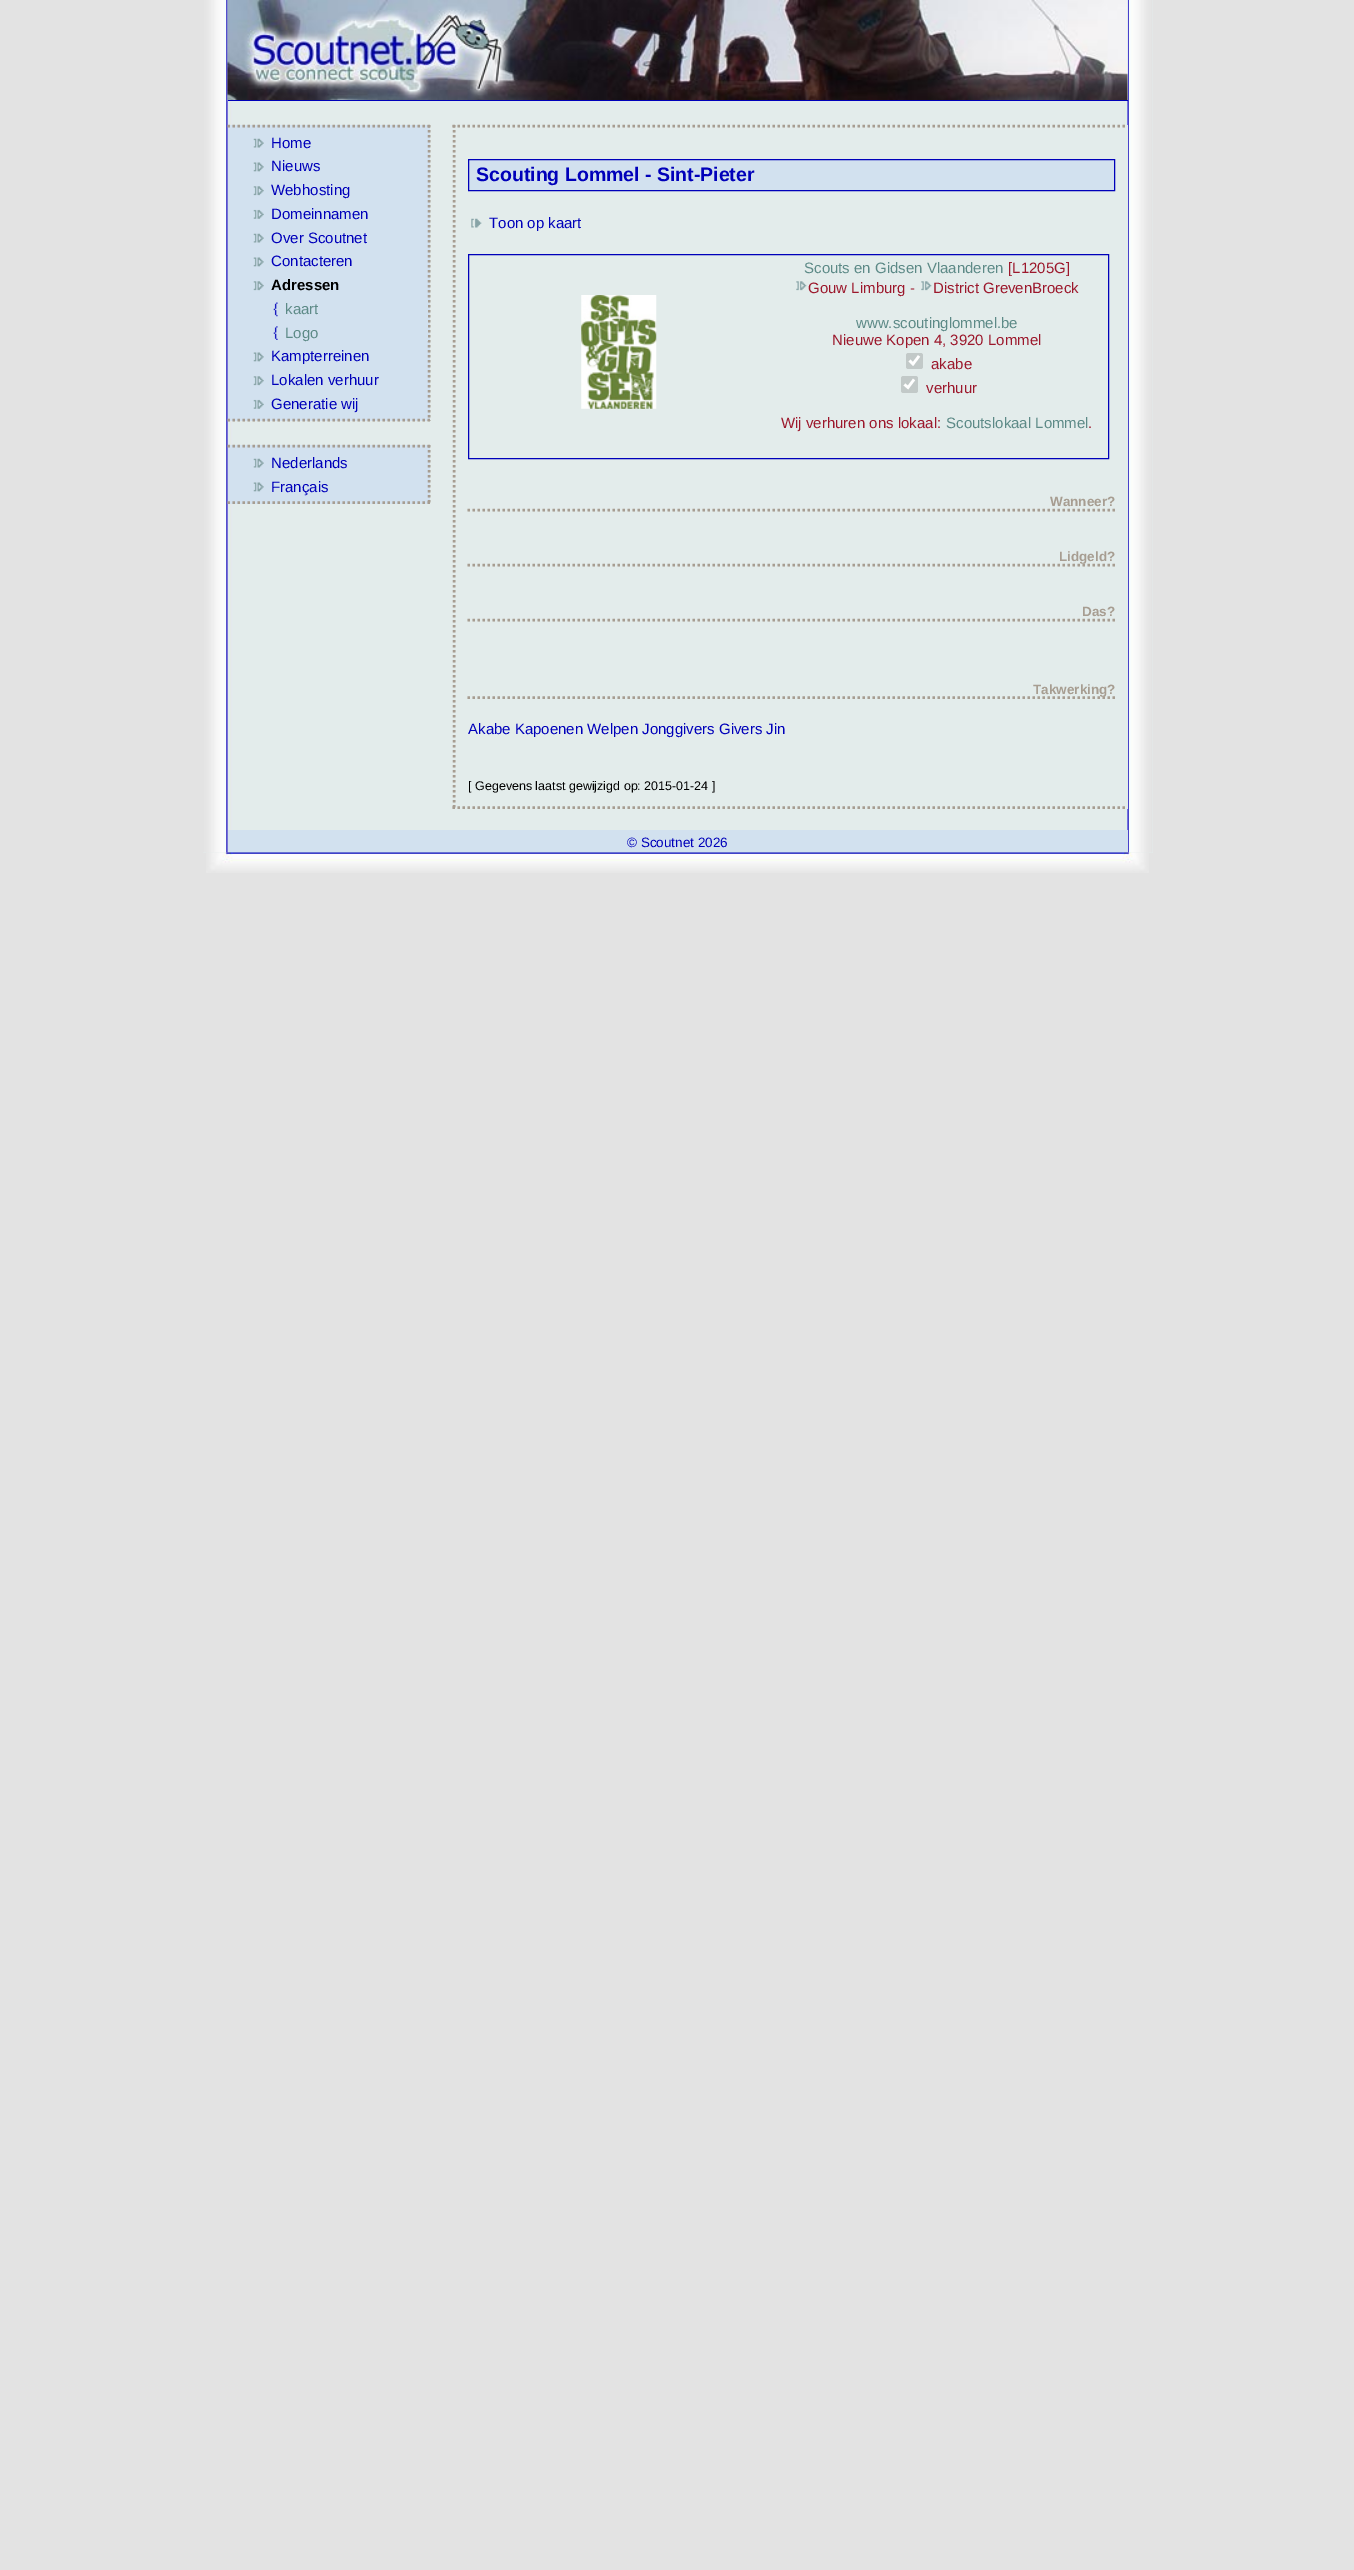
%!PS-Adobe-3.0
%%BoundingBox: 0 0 1354 2570
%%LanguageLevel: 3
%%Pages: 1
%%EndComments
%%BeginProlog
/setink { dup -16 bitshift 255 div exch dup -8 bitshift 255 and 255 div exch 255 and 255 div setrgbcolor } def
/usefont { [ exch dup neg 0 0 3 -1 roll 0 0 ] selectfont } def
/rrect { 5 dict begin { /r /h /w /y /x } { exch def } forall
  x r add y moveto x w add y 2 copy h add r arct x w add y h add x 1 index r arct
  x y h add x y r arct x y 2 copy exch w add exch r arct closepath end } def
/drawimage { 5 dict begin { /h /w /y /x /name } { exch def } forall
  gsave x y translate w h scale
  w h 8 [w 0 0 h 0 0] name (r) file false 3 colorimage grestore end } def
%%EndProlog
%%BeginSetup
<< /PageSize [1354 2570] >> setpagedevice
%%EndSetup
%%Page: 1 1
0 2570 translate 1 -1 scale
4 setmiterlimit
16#E3E3E3 setink
0 0 1354 2570 rectfill
16#E3ECEB setink
203 0 950 853 rectfill
(img1.raw) 203 0 950 853 drawimage
16#D2E1EF setink
1127 0 1 100 rectfill
16#0000BA setink
228 100 900 1 rectfill
(img2.raw) 227 0 901 100 drawimage
16#D2E1EF setink
228 125 202 296 rectfill
16#A79D91 setink
2.5 setlinewidth
[2.5 2.5] 0 setdash
227.5 126 moveto 430 126 lineto stroke
429 125 moveto 429 421 lineto stroke
227.5 420 moveto 430 420 lineto stroke
(img3.raw) 253 138 11 10 drawimage
/LiberationSans-Regular 15 usefont
16#0000BA setink
271 148 moveto (Home) show
(img4.raw) 253 162 11 10 drawimage
271 171 moveto (Nieuws) show
(img5.raw) 253 186 11 10 drawimage
271 195 moveto (Webhosting) show
(img6.raw) 253 209 11 10 drawimage
271 219 moveto (Domeinnamen) show
(img3.raw) 253 233 11 10 drawimage
271 243 moveto (Over Scoutnet) show
(img4.raw) 253 257 11 10 drawimage
271 266 moveto (Contacteren) show
(img5.raw) 253 281 11 10 drawimage
/LiberationSans-Bold 15 usefont
16#000000 setink
271 290 moveto (Adressen) show
16#D2E1EF setink
427 300 1 41 rectfill
(img7.raw) 273 302 5 15 drawimage
/LiberationSans-Regular 15 usefont
16#5D8A87 setink
285 314 moveto (kaart) show
(img8.raw) 273 326 5 14 drawimage
285 338 moveto (Logo) show
(img4.raw) 253 352 11 10 drawimage
16#0000BA setink
271 361 moveto (Kampterreinen) show
(img5.raw) 253 376 11 10 drawimage
271 385 moveto (Lokalen verhuur) show
(img6.raw) 253 399 11 10 drawimage
271 409 moveto (Generatie wij) show
16#D2E1EF setink
228 445 202 59 rectfill
16#A79D91 setink
227.5 446 moveto 430 446 lineto stroke
429 445 moveto 429 504 lineto stroke
227.5 502.5 moveto 430 502.5 lineto stroke
(img3.raw) 253 458 11 10 drawimage
16#0000BA setink
271 468 moveto (Nederlands) show
(img4.raw) 253 482 11 10 drawimage
271 492 moveto (Français) show
16#E3ECEB setink
1124 125 4 684 rectfill
16#A79D91 setink
452.5 126 moveto 1127.5 126 lineto stroke
452.5 807.5 moveto 1127.5 807.5 lineto stroke
454 125 moveto 454 809 lineto stroke
16#D2E1EF setink
468.5 159.5 moveto 1114.5 159.5 lineto 1114.5 190.5 lineto 468.5 190.5 lineto closepath gsave fill grestore
16#0000BA setink
1 setlinewidth
[] 0 setdash
stroke
/LiberationSans-Bold 19.5 usefont
476 181 moveto (Scouting Lommel - Sint-Pieter) show
(img9.raw) 471 218 11 10 drawimage
/LiberationSans-Regular 15 usefont
489 228 moveto (Toon op kaart) show
468.5 254.5 640 204 rectstroke
(img10.raw) 581 295 76 114 drawimage
16#5D8A87 setink
804 273 moveto (Scouts en Gidsen Vlaanderen) show
16#9C182C setink
1008 273 moveto ([L1205G]) show
(img11.raw) 796 281 11 10 drawimage
808 293 moveto (Gouw Limburg -) show
(img11.raw) 921 281 11 10 drawimage
933 293 moveto (District GrevenBroeck) show
16#5D8A87 setink
856 328 moveto (www.scoutinglommel.be) show
16#9C182C setink
832 345 moveto (Nieuwe Kopen 4, 3920 Lommel) show
16#C2C9C8 setink
906 353 17 16 2.5 rrect fill
16#FFFFFF setink
2.6 setlinewidth
909.5 360.5 moveto 913 364 lineto 919 356 lineto stroke
16#9C182C setink
931 369 moveto (akabe) show
16#C2C9C8 setink
901 376 17 17 2.5 rrect fill
16#FFFFFF setink
904.5 384.5 moveto 908 387.5 lineto 914 379.5 lineto stroke
16#9C182C setink
926 393 moveto (verhuur) show
781 428 moveto (Wij verhuren ons lokaal:) show
16#5D8A87 setink
946 428 moveto (Scoutslokaal Lommel) show
16#9C182C setink
1088 428 moveto (.) show
16#A79D91 setink
2.5 setlinewidth
[2.5 2.5] 0 setdash
467.5 510 moveto 1115 510 lineto stroke
/LiberationSans-Bold 13.5 usefont
1050 506 moveto (Wanneer?) show
467.5 565 moveto 1115 565 lineto stroke
1059 561 moveto (Lidgeld?) show
467.5 620 moveto 1115 620 lineto stroke
1082 616 moveto (Das?) show
467.5 697.5 moveto 1115 697.5 lineto stroke
1033 694 moveto (Takwerking?) show
/LiberationSans-Regular 15 usefont
16#0000BA setink
468 734 moveto (Akabe Kapoenen Welpen Jonggivers Givers Jin) show
/LiberationSans-Regular 12.5 usefont
16#000000 setink
468 790 moveto ([ Gegevens laatst gewijzigd op: 2015-01-24 ]) show
16#D2E1EF setink
228 830 900 23 rectfill
/LiberationSans-Regular 13.5 usefont
16#0000BA setink
627 847 moveto (© Scoutnet 2026) show
(img12.raw) 206 852 943 21 drawimage
showpage
%%EOF
